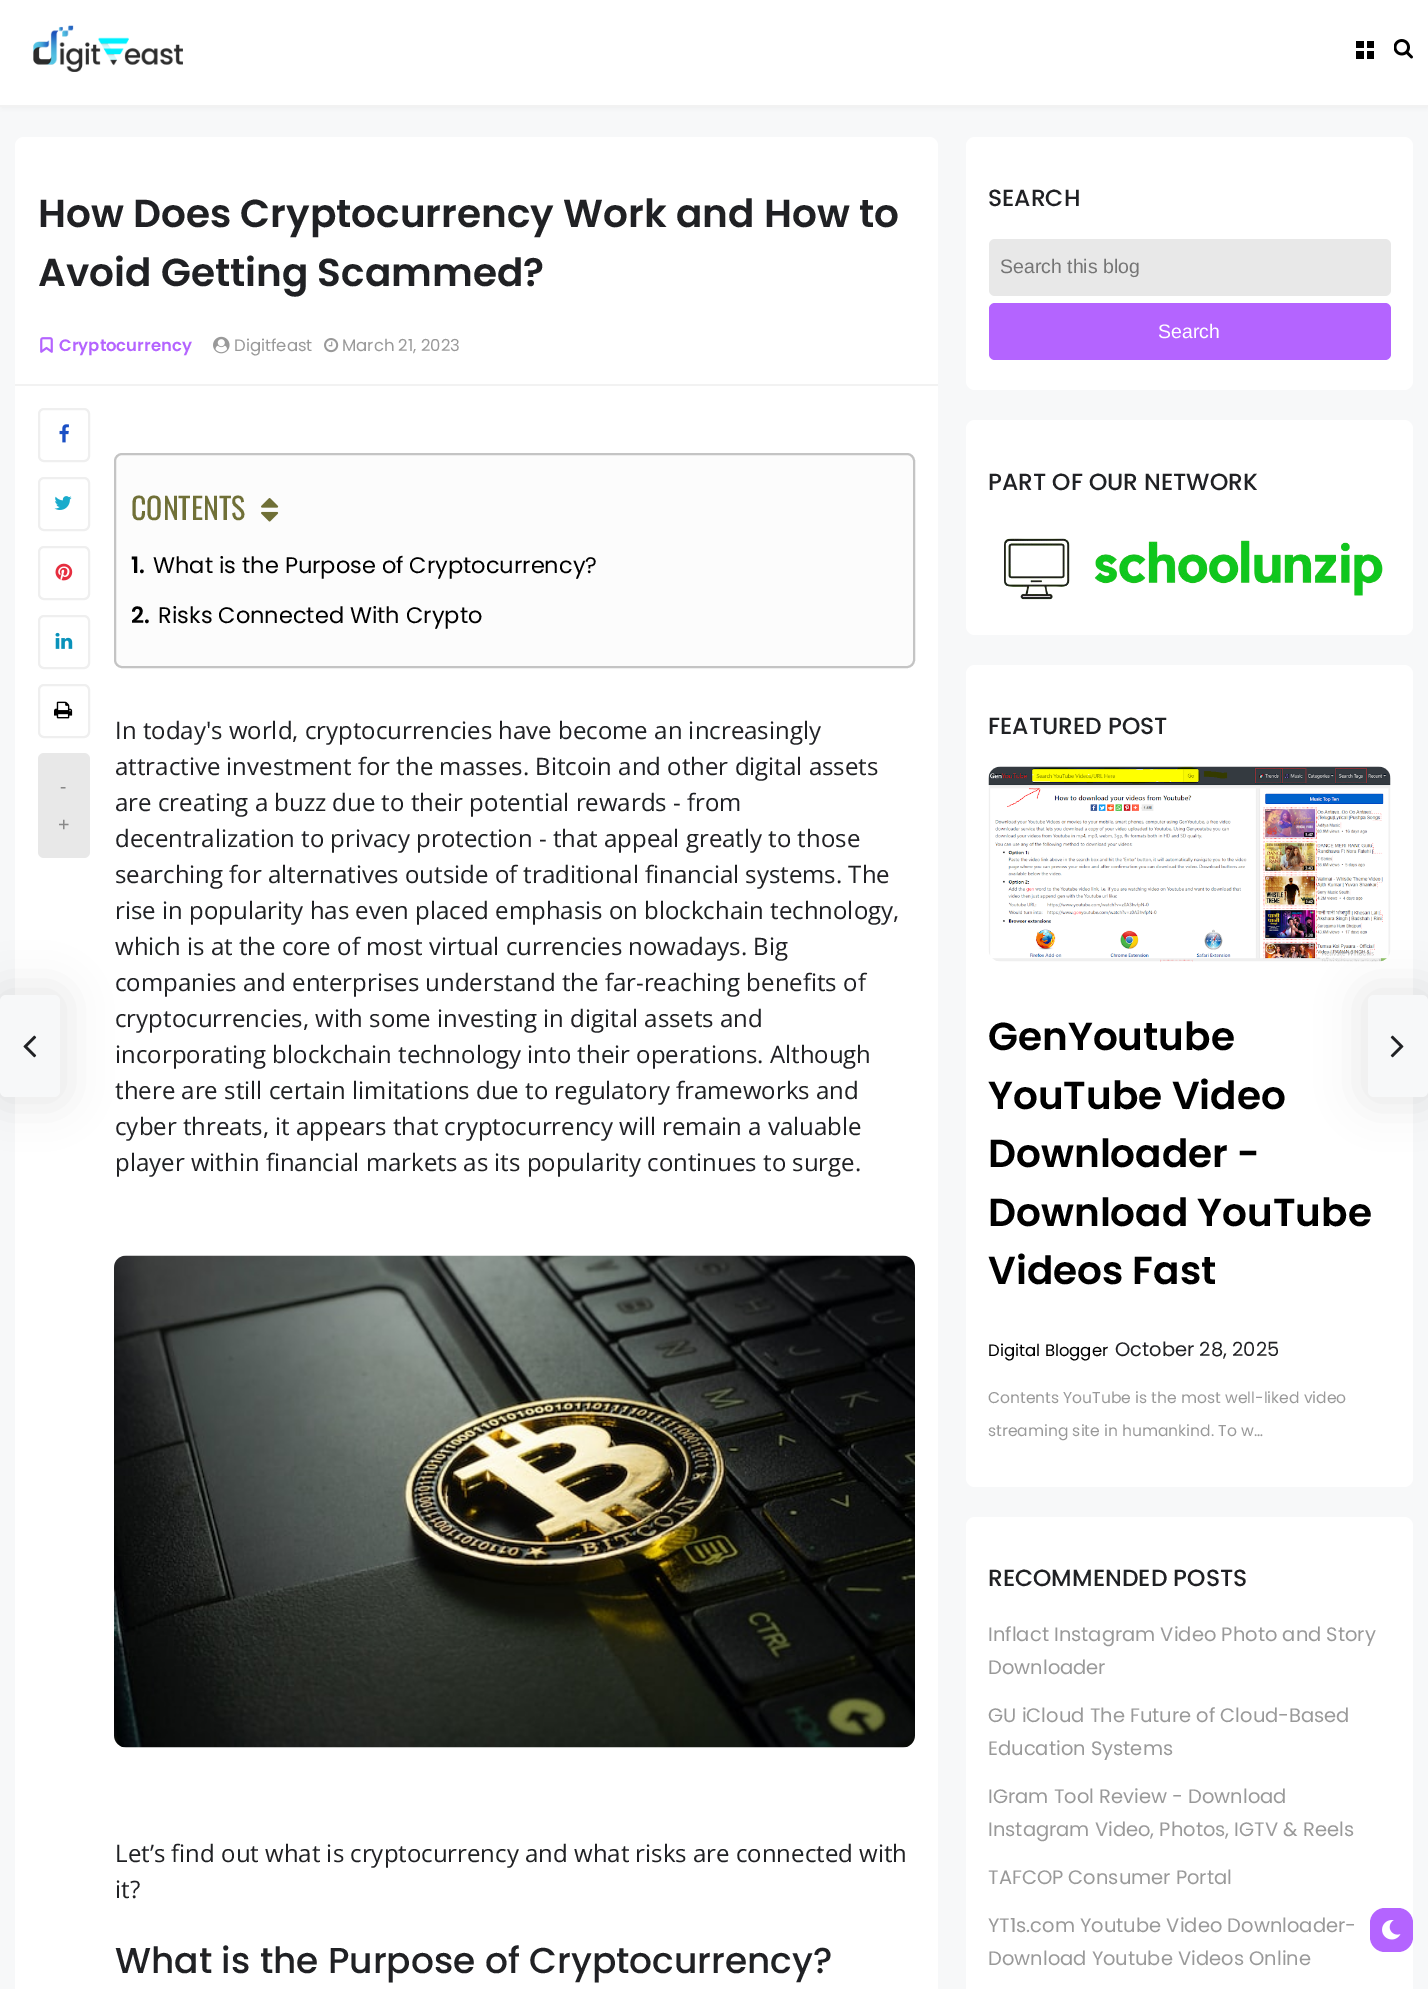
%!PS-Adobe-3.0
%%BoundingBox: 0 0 1428 1989
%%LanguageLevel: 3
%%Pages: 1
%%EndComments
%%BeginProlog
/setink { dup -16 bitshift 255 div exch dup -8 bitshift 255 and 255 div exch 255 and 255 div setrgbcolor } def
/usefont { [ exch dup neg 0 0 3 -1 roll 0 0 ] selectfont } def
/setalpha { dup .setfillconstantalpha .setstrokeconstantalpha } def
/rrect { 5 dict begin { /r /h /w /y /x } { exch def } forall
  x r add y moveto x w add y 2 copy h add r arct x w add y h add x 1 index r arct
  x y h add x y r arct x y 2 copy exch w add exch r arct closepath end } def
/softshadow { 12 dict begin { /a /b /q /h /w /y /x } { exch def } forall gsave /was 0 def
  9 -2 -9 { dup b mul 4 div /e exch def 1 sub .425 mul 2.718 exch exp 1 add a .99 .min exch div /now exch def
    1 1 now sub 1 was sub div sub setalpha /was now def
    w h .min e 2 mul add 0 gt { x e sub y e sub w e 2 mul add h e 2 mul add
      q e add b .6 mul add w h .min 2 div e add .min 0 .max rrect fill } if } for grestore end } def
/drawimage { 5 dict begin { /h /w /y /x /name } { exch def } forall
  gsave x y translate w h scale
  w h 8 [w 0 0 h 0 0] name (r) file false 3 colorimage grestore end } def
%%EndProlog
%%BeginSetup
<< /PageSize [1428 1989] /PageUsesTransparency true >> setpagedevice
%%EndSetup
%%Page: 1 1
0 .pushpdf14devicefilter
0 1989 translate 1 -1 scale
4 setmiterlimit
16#F7F8F9 setink
0 0 1428 1989 rectfill
16#000000 setink
2 3 1425 104 0 3 0.05 softshadow
16#FFFFFF setink
0 0 1428 105 rectfill
16#F2F2F2 setink
0 105 1428 2 rectfill
(img1.raw) 33 25 150 47 drawimage
(img2.raw) 1356 41 18 18 drawimage
(img3.raw) 1394 39 19 20 drawimage
16#FFFFFF setink
24 137 moveto 929 137 lineto 934 137 938 141 938 146 curveto 938 386 lineto 15 386 lineto 15 146 lineto 15 141 19 137 24 137 curveto closepath fill
16#F2F2F2 setink
15 384 923 2 rectfill
/Poppins-SemiBold 39 usefont
16#202124 setink
38 227 moveto (How Does Cryptocurrency Work and How to) show
38 286 moveto (Avoid Getting Scammed?) show
(img4.raw) 40 337 13 16 drawimage
/Poppins-SemiBold 16.5 usefont
16#B464FF setink
59 351 moveto (Cryptocurrency) show
(img5.raw) 213 336 17 18 drawimage
/Poppins-Regular 16.5 usefont
16#999999 setink
234 351 moveto (Digitfeast) show
(img6.raw) 324 338 15 15 drawimage
342 351 moveto (March 21, 2023) show
16#FFFFFF setink
15 386 923 1603 rectfill
16#EFEFEF setink
2 setlinewidth
39 409 50 52 5 rrect stroke
(img7.raw) 59 424 10 19 drawimage
39 478 50 52 5 rrect stroke
(img8.raw) 54 496 18 14 drawimage
39 547 50 52 5 rrect stroke
(img9.raw) 55 563 18 18 drawimage
39 616 50 52 5 rrect stroke
(img10.raw) 55 632 18 17 drawimage
39 685 50 52 5 rrect stroke
(img11.raw) 54 701 19 18 drawimage
16#E8E8E8 setink
38 753 52 105 6 rrect fill
/LiberationSans-Regular 19.5 usefont
16#888888 setink
60 793 moveto (-) show
58 831 moveto (+) show
16#FCFCFC setink
115 454 799 213 7 rrect gsave fill grestore
16#C4C4C4 setink
stroke
/Oswald-Regular 30 usefont
16#707037 setink
131 520 moveto (CONTENTS) show
(img12.raw) 261 498 18 24 drawimage
/Poppins-SemiBold 22.5 usefont
16#000000 setink
131 573 moveto (1.) show
/Poppins-Regular 22.5 usefont
153 573 moveto (What is the Purpose of Cryptocurrency?) show
/Poppins-SemiBold 22.5 usefont
131 623 moveto (2.) show
/Poppins-Regular 22.5 usefont
158 623 moveto (Risks Connected With Crypto) show
/OpenSans-Regular 24 usefont
16#202124 setink
[
    [(In today's world, cryptocurrencies have become an increasingly) 115 739]
    [(attractive investment for the masses. Bitcoin and other digital assets) 115 775]
    [(are creating a buzz due to their potential rewards - from) 115 811]
    [(decentralization to privacy protection - that appeal greatly to those) 115 847]
    [(searching for alternatives outside of traditional financial systems. The) 115 883]
    [(rise in popularity has even placed emphasis on blockchain technology,) 115 919]
    [(which is at the core of most virtual currencies nowadays. Big) 115 955]
    [(companies and enterprises understand the far-reaching benefits of) 115 991]
    [(cryptocurrencies, with some investing in digital assets and) 115 1027]
    [(incorporating blockchain technology into their operations. Although) 115 1063]
    [(there are still certain limitations due to regulatory frameworks and) 115 1099]
    [(cyber threats, it appears that cryptocurrency will remain a valuable) 115 1135]
    [(player within financial markets as its popularity continues to surge.) 115 1171]
] { aload pop moveto show } forall
(img13.raw) 114 1255 801 493 drawimage
115 1862 moveto (Let’s find out what is cryptocurrency and what risks are connected with) show
115 1898 moveto (it?) show
/Poppins-Medium 36 usefont
115 1973 moveto (What is the Purpose of Cryptocurrency?) show
16#FFFFFF setink
966 137 447 253 9 rrect fill
/Poppins-Medium 23.4 usefont
16#202124 setink
988 206 moveto (SEARCH) show
16#E8E8E8 setink
989 239 402 57 6 rrect fill
/LiberationSans-Regular 19.5 usefont
16#757575 setink
1000 273 moveto (Search this blog) show
16#B464FF setink
989 303 402 57 6 rrect fill
16#FFFFFF setink
1158 338 moveto (Search) show
966 420 447 215 9 rrect fill
/Poppins-Medium 23.4 usefont
16#202124 setink
988 490 moveto (PART OF OUR NETWORK) show
(img14.raw) 1004 538 379 62 drawimage
16#FFFFFF setink
966 665 447 822 9 rrect fill
16#202124 setink
988 734 moveto (FEATURED POST) show
(img15.raw) 988 766 403 196 drawimage
/Poppins-SemiBold 39 usefont
16#000000 setink
[
    [(GenYoutube) 988 1050]
    [(YouTube Video) 988 1109]
    [(Downloader -) 988 1167]
    [(Download YouTube) 988 1226]
    [(Videos Fast) 988 1284]
] { aload pop moveto show } forall
/Poppins-Regular 16.5 usefont
988 1356 moveto (Digital Blogger) show
/Poppins-Regular 19.5 usefont
16#202124 setink
1115 1356 moveto (October 28, 2025) show
/Poppins-Regular 15.6 usefont
16#999999 setink
988 1403 moveto (Contents YouTube is the most well-liked video) show
988 1436 moveto (streaming site in humankind. To w…) show
16#FFFFFF setink
966 1517 447 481 9 rrect fill
/Poppins-Medium 23.4 usefont
16#202124 setink
988 1586 moveto (RECOMMENDED POSTS) show
/Poppins-Regular 19.5 usefont
16#999999 setink
[
    [(Inflact Instagram Video Photo and Story) 988 1641]
    [(Downloader) 988 1674]
    [(GU iCloud The Future of Cloud-Based) 988 1722]
    [(Education Systems) 988 1755]
    [(IGram Tool Review - Download) 988 1803]
    [(Instagram Video, Photos, IGTV & Reels) 988 1836]
    [(TAFCOP Consumer Portal) 988 1884]
    [(YT1s.com Youtube Video Downloader-) 988 1932]
    [(Download Youtube Videos Online) 988 1965]
] { aload pop moveto show } forall
16#000000 setink
-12 983 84 126 18 19 0.07 softshadow
16#F7F8F9 setink
0 995 60 102 6 rrect fill
(img16.raw) 23 1035 14 23 drawimage
16#000000 setink
1356 983 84 126 18 19 0.07 softshadow
16#F7F8F9 setink
1368 995 60 102 6 rrect fill
(img17.raw) 1390 1035 14 23 drawimage
16#B464FF setink
1370 1908 43 44 15 rrect fill
(img18.raw) 1382 1920 19 20 drawimage
.poppdf14devicefilter showpage
%%EOF
